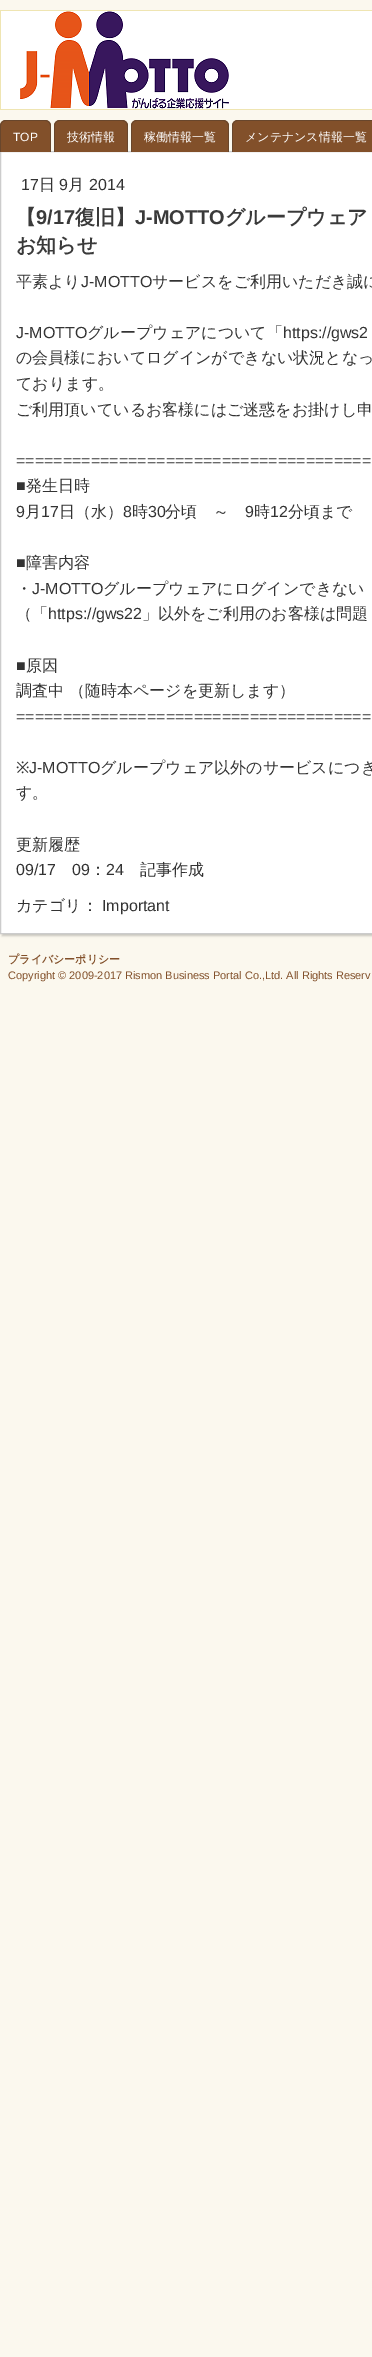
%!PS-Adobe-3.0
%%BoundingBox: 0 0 372 2357
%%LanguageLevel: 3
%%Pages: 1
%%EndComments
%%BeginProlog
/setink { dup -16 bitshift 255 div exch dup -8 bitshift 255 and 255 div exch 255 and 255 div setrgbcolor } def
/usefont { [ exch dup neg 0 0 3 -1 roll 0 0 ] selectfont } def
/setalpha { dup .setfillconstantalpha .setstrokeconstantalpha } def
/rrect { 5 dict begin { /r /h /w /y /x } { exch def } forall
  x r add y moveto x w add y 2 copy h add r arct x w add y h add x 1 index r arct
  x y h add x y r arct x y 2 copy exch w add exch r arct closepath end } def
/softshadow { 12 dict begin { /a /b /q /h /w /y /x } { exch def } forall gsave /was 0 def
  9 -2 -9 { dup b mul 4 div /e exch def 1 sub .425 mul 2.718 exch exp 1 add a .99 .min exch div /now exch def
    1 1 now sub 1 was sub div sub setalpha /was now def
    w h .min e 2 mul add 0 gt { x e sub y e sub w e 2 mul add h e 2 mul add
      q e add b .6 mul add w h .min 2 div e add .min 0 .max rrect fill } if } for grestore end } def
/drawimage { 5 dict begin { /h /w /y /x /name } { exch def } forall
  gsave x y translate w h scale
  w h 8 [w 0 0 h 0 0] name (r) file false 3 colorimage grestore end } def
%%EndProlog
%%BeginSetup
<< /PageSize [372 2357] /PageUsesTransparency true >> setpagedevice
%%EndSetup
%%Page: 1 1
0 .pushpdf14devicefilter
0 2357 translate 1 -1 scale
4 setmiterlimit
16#FBF8EE setink
0 0 372 2357 rectfill
(img1.raw) 0 10 372 100 drawimage
16#000000 setink
2 153 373 783 0 1 0.2 softshadow
16#FFFFFF setink
0.5 151.5 moveto 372.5 151.5 lineto 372.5 933.5 lineto 0.5 933.5 lineto closepath gsave fill grestore
16#CCCCCC setink
stroke
16#82502A setink
6 120 moveto 45 120 lineto 48.5 120 51 122.5 51 126 curveto 51 152 lineto 0 152 lineto 0 126 lineto 0 122.5 2.5 120 6 120 curveto closepath fill
16#68462C setink
6 120 moveto 45 120 lineto 48 120 51 123 51 126 curveto 51 152 lineto 0 152 lineto 0 126 lineto 0 123 3 120 6 120 curveto closepath 6 121 moveto 45 121 lineto 48 121 50 123 50 126 curveto 50 152 lineto 1 152 lineto 1 126 lineto 1 123 3 121 6 121 curveto closepath eofill
/LiberationSans-Regular 12 usefont
16#FFFFFF setink
13 141 moveto (TOP) show
16#82502A setink
60 120 moveto 122 120 lineto 125.5 120 128 122.5 128 126 curveto 128 152 lineto 54 152 lineto 54 126 lineto 54 122.5 56.5 120 60 120 curveto closepath fill
16#68462C setink
60 120 moveto 122 120 lineto 125 120 128 123 128 126 curveto 128 152 lineto 54 152 lineto 54 126 lineto 54 123 57 120 60 120 curveto closepath 60 121 moveto 122 121 lineto 125 121 127 123 127 126 curveto 127 152 lineto 55 152 lineto 55 126 lineto 55 123 57 121 60 121 curveto closepath eofill
/WenQuanYiZenHei-Medium 12 usefont
16#FFFFFF setink
67 141 moveto (技術情報) show
16#82502A setink
137 120 moveto 223 120 lineto 226.5 120 229 122.5 229 126 curveto 229 152 lineto 131 152 lineto 131 126 lineto 131 122.5 133.5 120 137 120 curveto closepath fill
16#68462C setink
137 120 moveto 223 120 lineto 226 120 229 123 229 126 curveto 229 152 lineto 131 152 lineto 131 126 lineto 131 123 134 120 137 120 curveto closepath 137 121 moveto 223 121 lineto 226 121 228 123 228 126 curveto 228 152 lineto 132 152 lineto 132 126 lineto 132 123 134 121 137 121 curveto closepath eofill
16#FFFFFF setink
144 141 moveto (稼働情報一覧) show
16#82502A setink
238 120 moveto 372 120 lineto 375.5 120 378 122.5 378 126 curveto 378 152 lineto 232 152 lineto 232 126 lineto 232 122.5 234.5 120 238 120 curveto closepath fill
16#68462C setink
238 120 moveto 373 120 lineto 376 120 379 123 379 126 curveto 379 152 lineto 232 152 lineto 232 126 lineto 232 123 235 120 238 120 curveto closepath 238 121 moveto 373 121 lineto 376 121 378 123 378 126 curveto 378 152 lineto 233 152 lineto 233 126 lineto 233 123 235 121 238 121 curveto closepath eofill
16#FFFFFF setink
245 141 moveto (メンテナンス情報一覧) show
/LiberationSans-Regular 16 usefont
16#333333 setink
21 190 moveto (17) show
/WenQuanYiZenHei-Medium 16 usefont
39 190 moveto (日) show
/LiberationSans-Regular 16 usefont
59 190 moveto (9) show
/WenQuanYiZenHei-Medium 16 usefont
68 190 moveto (月) show
/LiberationSans-Regular 16 usefont
89 190 moveto (2014) show
/WenQuanYiZenHei-Bold 20 usefont
16#3A3A3A setink
16 224 moveto (【) show
/LiberationSans-Bold 20 usefont
36 224 moveto (9/17) show
/WenQuanYiZenHei-Bold 20 usefont
75 224 moveto (復旧】) show
/LiberationSans-Bold 20 usefont
135 224 moveto (J-MOTTO) show
/WenQuanYiZenHei-Bold 20 usefont
225 224 moveto (グループウェア) show
16 252 moveto (お知らせ) show
/WenQuanYiZenHei-Medium 16 usefont
16#333333 setink
16 287 moveto (平素より) show
/LiberationSans-Regular 16 usefont
81 287 moveto (J-MOTTO) show
/WenQuanYiZenHei-Medium 16 usefont
152 287 moveto (サービスをご利用いただき誠に) show
/LiberationSans-Regular 16 usefont
16 338 moveto (J-MOTTO) show
/WenQuanYiZenHei-Medium 16 usefont
87 338 moveto (グループウェアについて「) show
/LiberationSans-Regular 16 usefont
283 338 moveto (https://gws2) show
/WenQuanYiZenHei-Medium 16 usefont
[
    [(の会員様においてログインができない状況となっ) 16 363]
    [(ております。) 16 389]
    [(ご利用頂いているお客様にはご迷惑をお掛けし申) 16 415]
] { aload pop moveto show } forall
/LiberationSans-Regular 16 usefont
16 466 moveto (======================================) show
16 491 moveto (■) show
/WenQuanYiZenHei-Medium 16 usefont
26 491 moveto (発生日時) show
/LiberationSans-Regular 16 usefont
16 517 moveto (9) show
/WenQuanYiZenHei-Medium 16 usefont
25 517 moveto (月) show
/LiberationSans-Regular 16 usefont
41 517 moveto (17) show
/WenQuanYiZenHei-Medium 16 usefont
59 517 moveto (日（水）) show
/LiberationSans-Regular 16 usefont
123 517 moveto (8) show
/WenQuanYiZenHei-Medium 16 usefont
132 517 moveto (時) show
/LiberationSans-Regular 16 usefont
148 517 moveto (30) show
/WenQuanYiZenHei-Medium 16 usefont
165 517 moveto (分頃　～) show
/LiberationSans-Regular 16 usefont
245 517 moveto (9) show
/WenQuanYiZenHei-Medium 16 usefont
254 517 moveto (時) show
/LiberationSans-Regular 16 usefont
270 517 moveto (12) show
/WenQuanYiZenHei-Medium 16 usefont
288 517 moveto (分頃まで) show
/LiberationSans-Regular 16 usefont
16 568 moveto (■) show
/WenQuanYiZenHei-Medium 16 usefont
26 568 moveto (障害内容) show
16 594 moveto (・) show
/LiberationSans-Regular 16 usefont
32 594 moveto (J-MOTTO) show
/WenQuanYiZenHei-Medium 16 usefont
103 594 moveto (グループウェアにログインできない) show
16 619 moveto (（「) show
/LiberationSans-Regular 16 usefont
48 619 moveto (https://gws22) show
/WenQuanYiZenHei-Medium 16 usefont
142 619 moveto (」以外をご利用のお客様は問題) show
/LiberationSans-Regular 16 usefont
16 671 moveto (■) show
/WenQuanYiZenHei-Medium 16 usefont
26 671 moveto (原因) show
16 696 moveto (調査中 （随時本ページを更新します）) show
/LiberationSans-Regular 16 usefont
16 722 moveto (======================================) show
/NotoSans-Regular 16 usefont
16 773 moveto (※) show
/LiberationSans-Regular 16 usefont
29 773 moveto (J-MOTTO) show
/WenQuanYiZenHei-Medium 16 usefont
[
    [(グループウェア以外のサービスにつき) 100 773]
    [(す。) 16 798]
    [(更新履歴) 16 850]
] { aload pop moveto show } forall
/LiberationSans-Regular 16 usefont
16 875 moveto (09/17) show
72 875 moveto (09) show
/WenQuanYiZenHei-Medium 16 usefont
90 875 moveto (：) show
/LiberationSans-Regular 16 usefont
106 875 moveto (24) show
/WenQuanYiZenHei-Medium 16 usefont
140 875 moveto (記事作成) show
16 911 moveto (カテゴリ：) show
/LiberationSans-Regular 16 usefont
102 911 moveto (Important) show
/WenQuanYiZenHei-Bold 11 usefont
16#82502A setink
8 963 moveto (プライバシーポリシー) show
/LiberationSans-Regular 11 usefont
8 979 moveto (Copyright © 2009-2017 Rismon Business Portal Co.,Ltd. All Rights Reserv) show
.poppdf14devicefilter showpage
%%EOF
